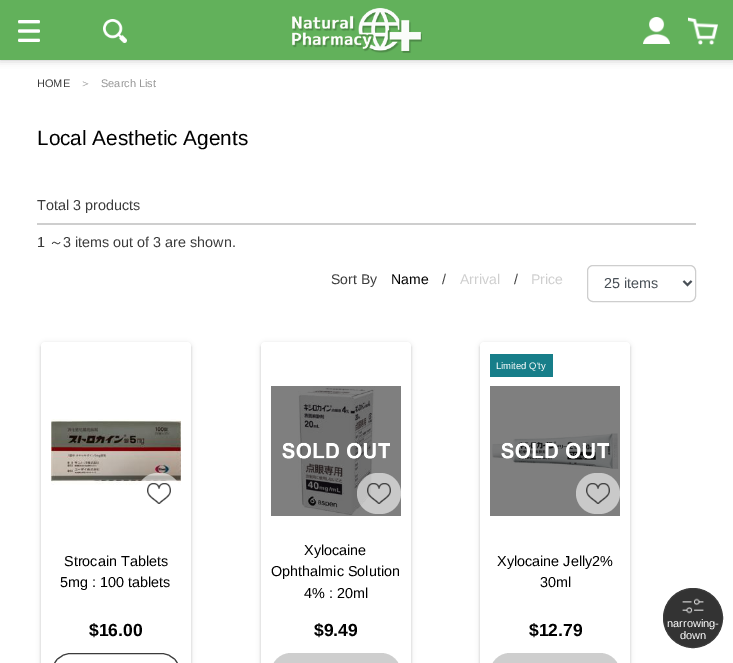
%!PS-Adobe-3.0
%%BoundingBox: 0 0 733 663
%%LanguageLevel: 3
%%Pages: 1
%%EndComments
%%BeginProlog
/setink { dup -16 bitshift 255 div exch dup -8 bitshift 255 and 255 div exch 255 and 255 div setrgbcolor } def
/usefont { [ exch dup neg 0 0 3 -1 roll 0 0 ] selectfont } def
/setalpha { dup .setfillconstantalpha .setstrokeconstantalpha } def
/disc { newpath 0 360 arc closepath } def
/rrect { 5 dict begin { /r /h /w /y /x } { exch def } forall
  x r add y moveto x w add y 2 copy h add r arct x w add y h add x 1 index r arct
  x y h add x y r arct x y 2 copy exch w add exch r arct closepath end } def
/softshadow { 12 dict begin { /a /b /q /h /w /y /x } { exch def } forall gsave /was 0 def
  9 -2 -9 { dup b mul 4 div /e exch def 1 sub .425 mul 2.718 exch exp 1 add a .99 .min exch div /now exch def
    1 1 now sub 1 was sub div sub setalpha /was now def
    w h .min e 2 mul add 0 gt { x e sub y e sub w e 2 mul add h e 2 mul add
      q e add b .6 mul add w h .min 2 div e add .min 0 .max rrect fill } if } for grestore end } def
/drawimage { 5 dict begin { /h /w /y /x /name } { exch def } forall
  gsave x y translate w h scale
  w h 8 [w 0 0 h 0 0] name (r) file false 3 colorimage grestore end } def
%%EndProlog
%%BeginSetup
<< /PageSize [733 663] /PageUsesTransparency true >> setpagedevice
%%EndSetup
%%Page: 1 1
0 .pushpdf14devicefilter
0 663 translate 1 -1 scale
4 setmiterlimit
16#FFFFFF setink
0 0 733 663 rectfill
16#808080 setink
0 0 733 60 0 4 0.5 softshadow
16#62B15B setink
0 0 733 60 rectfill
(img1.raw) 18 20 22 22 drawimage
(img2.raw) 103 19 24 24 drawimage
(img3.raw) 292 8 130 45 drawimage
(img4.raw) 643 17 27 27 drawimage
(img5.raw) 688 17 30 28 drawimage
/LiberationSans-Regular 11 usefont
16#3C3C3C setink
37 87 moveto (HOME) show
/WenQuanYiZenHei-Medium 11 usefont
16#979797 setink
80 87 moveto (＞) show
/LiberationSans-Regular 11 usefont
101 87 moveto (Search List) show
/LiberationSans-Regular 20.75 usefont
16#000000 setink
37 145 moveto (Local Aesthetic Agents) show
/LiberationSans-Regular 14.4 usefont
16#3C3C3C setink
37 210 moveto (Total 3 products) show
16#CECECE setink
37 223 659 2 rectfill
16#3C3C3C setink
37 247 moveto (1) show
/WenQuanYiZenHei-Medium 14.4 usefont
49 247 moveto (～) show
/LiberationSans-Regular 14.4 usefont
63 247 moveto (3 items out of 3 are shown.) show
/LiberationSans-Regular 14 usefont
331 284 moveto (Sort By) show
16#000000 setink
391 284 moveto (Name) show
16#3C3C3C setink
442 284 moveto (/) show
16#CECECE setink
460 284 moveto (Arrival) show
16#3C3C3C setink
514 284 moveto (/) show
16#CECECE setink
531 284 moveto (Price) show
587.5 265.5 108 36 5.5 rrect stroke
16#495057 setink
2 setlinewidth
683.5 281 moveto 687.5 285 lineto 691.5 281 lineto stroke
/LiberationSans-Regular 14.4 usefont
604 288 moveto (25 items) show
16#000000 setink
41 343 150 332 4 2.5 0.12 softshadow
41 344 150 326 4 1 0.14 softshadow
16#FFFFFF setink
41 342 150 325 4 rrect fill
(img6.raw) 51 419 130 66 drawimage
0.58 setalpha
137 473 44 41 20.5 rrect fill
1 setalpha
(img7.raw) 147 483 24 21 drawimage
16#000000 setink
64 566 moveto (Strocain Tablets) show
60 587 moveto (5mg : 100 tablets) show
/LiberationSans-Bold 17.5 usefont
89 636 moveto ($16.00) show
16#3C3C3C setink
1 setlinewidth
51.5 653.5 129 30 19.5 rrect stroke
16#000000 setink
261 343 150 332 4 2.5 0.12 softshadow
261 344 150 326 4 1 0.14 softshadow
16#FFFFFF setink
261 342 150 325 4 rrect fill
(img9.raw) 298 386 77 130 drawimage
(img8.raw) 271 386 130 130 drawimage
0.58 setalpha
357 473 44 41 20.5 rrect fill
1 setalpha
(img10.raw) 367 483 24 21 drawimage
/LiberationSans-Regular 14.4 usefont
16#000000 setink
[
    [(Xylocaine) 304 555]
    [(Ophthalmic Solution) 271 576]
    [(4% : 20ml) 304 598]
] { aload pop moveto show } forall
/LiberationSans-Bold 17.5 usefont
314 636 moveto ($9.49) show
16#CECECE setink
271 653 130 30 20 rrect fill
16#000000 setink
480 343 150 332 4 2.5 0.12 softshadow
480 344 150 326 4 1 0.14 softshadow
16#FFFFFF setink
480 342 150 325 4 rrect fill
16#177E89 setink
490 354 63 23 rectfill
/LiberationSans-Regular 9.5 usefont
16#FFFFFF setink
496 369 moveto (Limited Q'ty) show
(img12.raw) 492 433 127 36 drawimage
(img11.raw) 490 386 130 130 drawimage
16#C9C9C9 setink
576 473 44 41 20.5 rrect fill
(img13.raw) 586 483 24 21 drawimage
/LiberationSans-Regular 14.4 usefont
16#000000 setink
497 566 moveto (Xylocaine Jelly2%) show
540 587 moveto (30ml) show
/LiberationSans-Bold 17.5 usefont
529 636 moveto ($12.79) show
16#CECECE setink
490 653 130 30 20 rrect fill
16#333333 setink
693 618 29.5 disc gsave fill grestore
16#3C3C3C setink
stroke
(img14.raw) 682 598 22 16 drawimage
/LiberationSans-Regular 11 usefont
16#FFFFFF setink
667 627 moveto (narrowing-) show
680 639 moveto (down) show
.poppdf14devicefilter showpage
%%EOF
